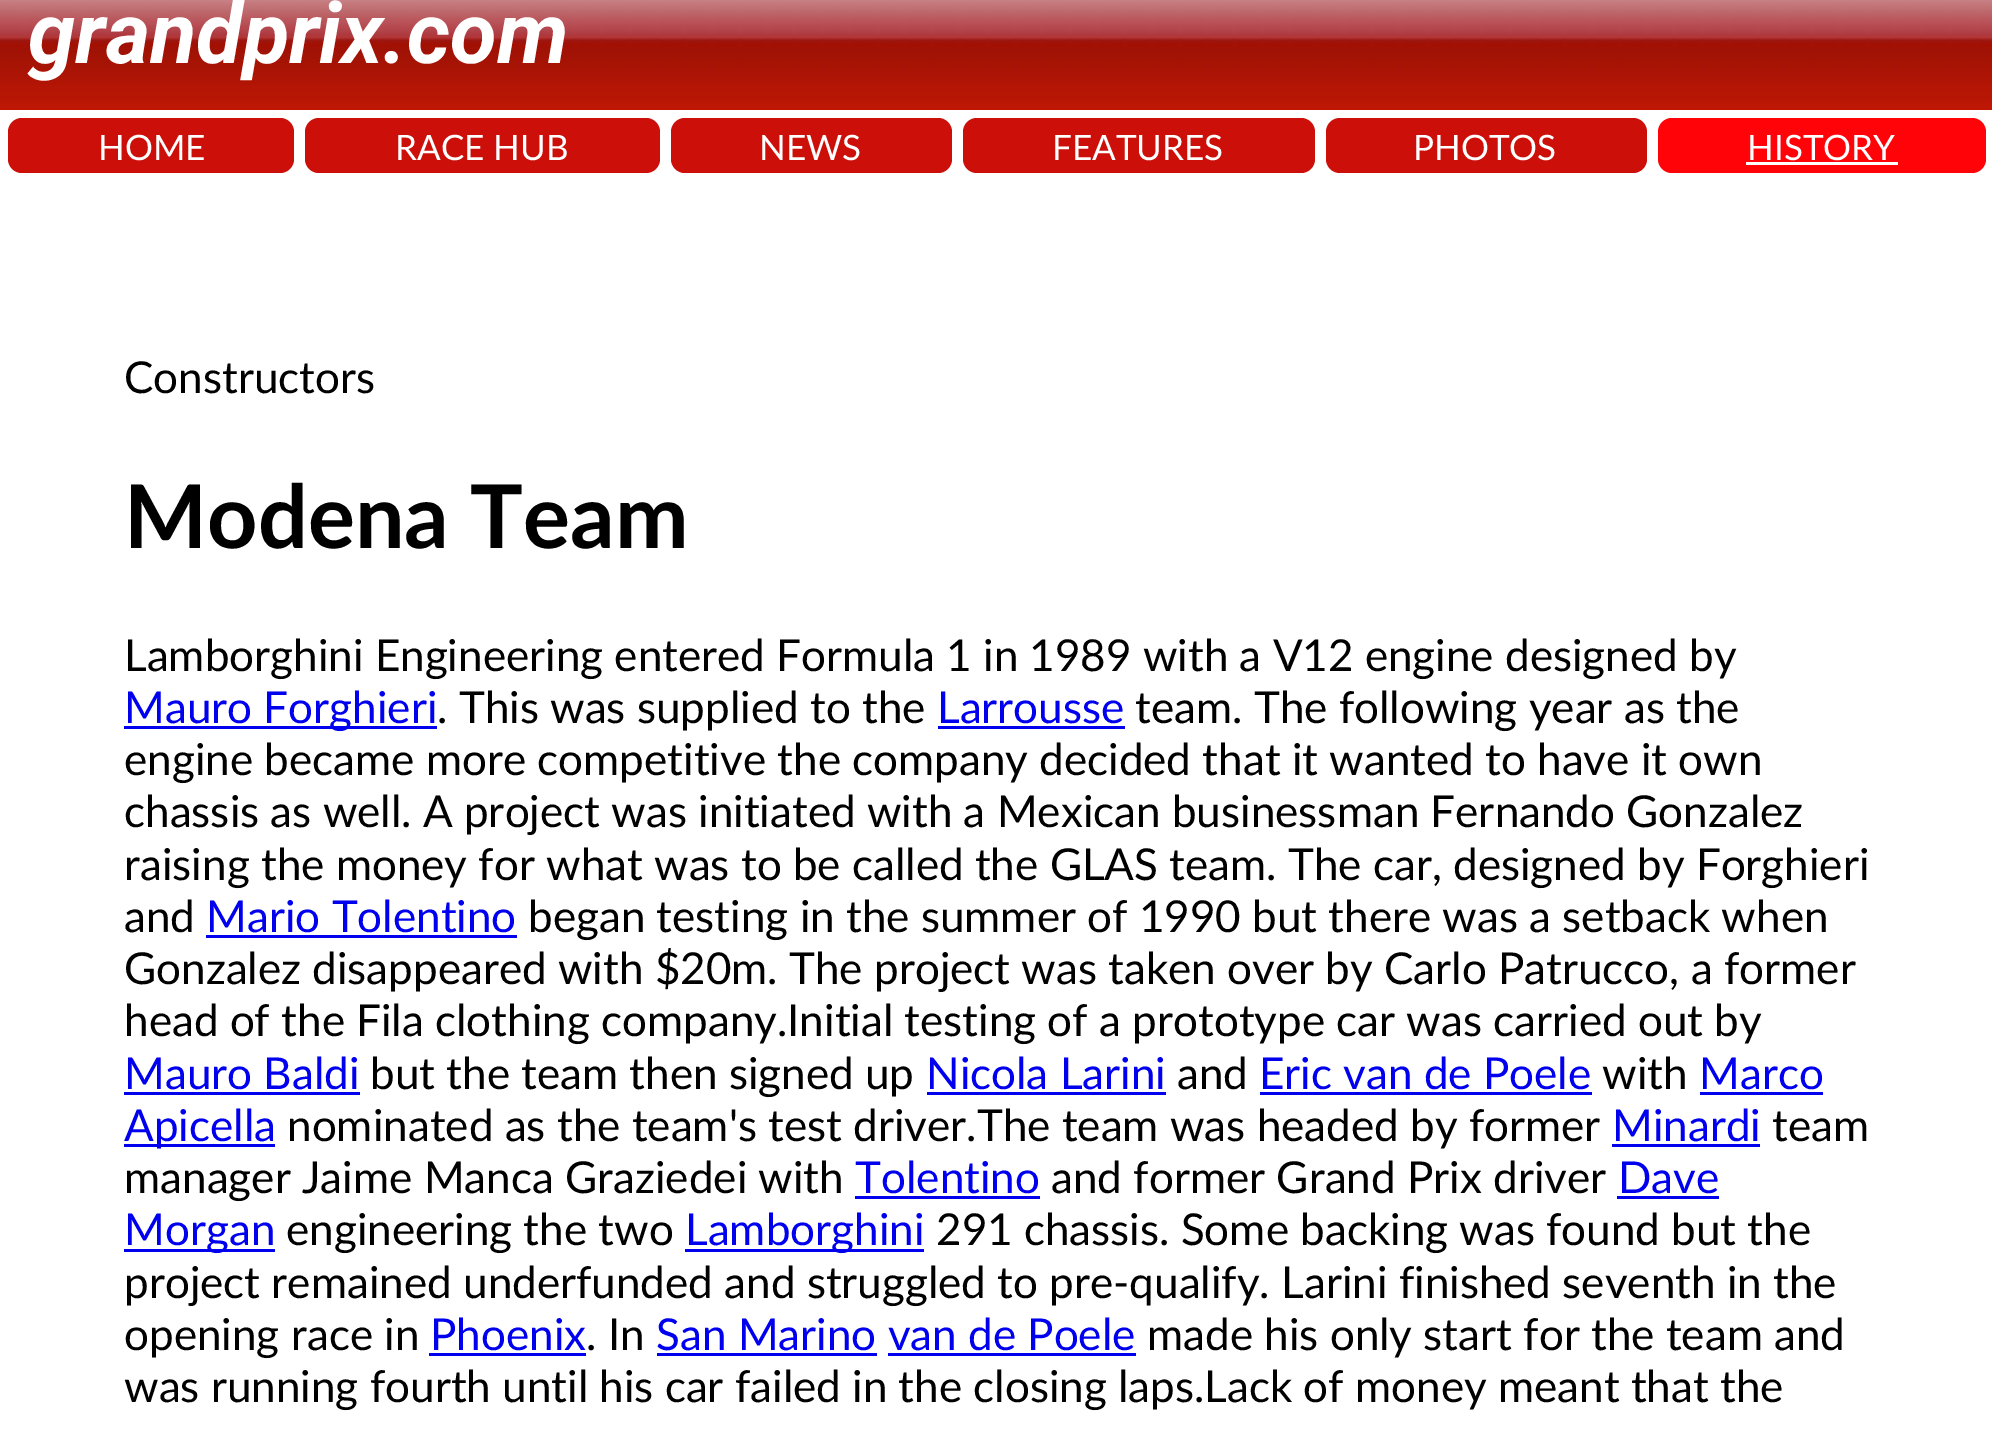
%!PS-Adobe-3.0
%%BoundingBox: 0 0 1992 1432
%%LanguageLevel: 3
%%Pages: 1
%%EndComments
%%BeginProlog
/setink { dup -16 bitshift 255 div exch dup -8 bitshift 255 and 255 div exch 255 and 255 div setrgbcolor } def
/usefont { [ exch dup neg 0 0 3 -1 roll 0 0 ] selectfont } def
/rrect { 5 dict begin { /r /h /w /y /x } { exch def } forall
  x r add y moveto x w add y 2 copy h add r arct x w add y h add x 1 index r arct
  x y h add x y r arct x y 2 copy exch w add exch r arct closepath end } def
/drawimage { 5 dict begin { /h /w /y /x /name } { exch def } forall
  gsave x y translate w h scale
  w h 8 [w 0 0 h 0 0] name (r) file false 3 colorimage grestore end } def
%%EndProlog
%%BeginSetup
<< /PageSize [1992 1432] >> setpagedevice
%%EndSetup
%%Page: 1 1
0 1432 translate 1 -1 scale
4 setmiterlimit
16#FFFFFF setink
0 0 1992 1432 rectfill
(img1.raw) 0 0 1992 110 drawimage
/Roboto-BoldItalic 85.25 usefont
28 63 moveto (grandprix.com) show
16#CC0F09 setink
8 118 286 55 14 rrect fill
/Lato-Regular 35 usefont
16#FFFFFF setink
98 160 moveto (HOME) show
16#CC0F09 setink
305 118 355 55 14 rrect fill
16#FFFFFF setink
395 160 moveto (RACE HUB) show
16#CC0F09 setink
671 118 281 55 14 rrect fill
16#FFFFFF setink
759 160 moveto (NEWS) show
16#CC0F09 setink
963 118 352 55 14 rrect fill
16#FFFFFF setink
1052 160 moveto (FEATURES) show
16#CC0F09 setink
1326 118 321 55 14 rrect fill
16#FFFFFF setink
1413 160 moveto (PHOTOS) show
16#FF0309 setink
1658 118 328 55 14 rrect fill
16#FFFFFF setink
1747 160 moveto (HISTORY) show
1746 162 152 3 rectfill
/Lato-Regular 44 usefont
16#000000 setink
124 393 moveto (Constructors) show
/Lato-Bold 88 usefont
124 548 moveto (Modena Team) show
/Lato-Regular 44 usefont
124 671 moveto (Lamborghini Engineering entered Formula 1 in 1989 with a V12 engine designed by) show
16#0000EE setink
124 726 313 3 rectfill
124 723 moveto (Mauro Forghieri) show
16#000000 setink
437 723 moveto (. This was supplied to the) show
16#0000EE setink
937 723 moveto (Larrousse) show
938 726 187 3 rectfill
16#000000 setink
[
    [(team. The following year as the) 1135 723]
    [(engine became more competitive the company decided that it wanted to have it own) 124 775]
    [(chassis as well. A project was initiated with a Mexican businessman Fernando Gonzalez) 124 827]
    [(raising the money for what was to be called the GLAS team. The car, designed by Forghieri) 124 880]
    [(and) 124 932]
] { aload pop moveto show } forall
16#0000EE setink
206 932 moveto (Mario Tolentino) show
206 935 311 3 rectfill
16#000000 setink
[
    [(began testing in the summer of 1990 but there was a setback when) 528 932]
    [(Gonzalez disappeared with $20m. The project was taken over by Carlo Patrucco, a former) 124 984]
    [(head of the Fila clothing company.Initial testing of a prototype car was carried out by) 124 1036]
] { aload pop moveto show } forall
16#0000EE setink
124 1089 moveto (Mauro Baldi) show
124 1092 236 3 rectfill
16#000000 setink
370 1089 moveto (but the team then signed up) show
16#0000EE setink
926 1089 moveto (Nicola Larini) show
927 1092 239 3 rectfill
16#000000 setink
1177 1089 moveto (and) show
16#0000EE setink
1259 1089 moveto (Eric van de Poele) show
1260 1092 332 3 rectfill
16#000000 setink
1602 1089 moveto (with) show
16#0000EE setink
1699 1089 moveto (Marco) show
1700 1092 123 3 rectfill
124 1144 151 3 rectfill
124 1141 moveto (Apicella) show
16#000000 setink
287 1141 moveto (nominated as the team's test driver.The team was headed by former) show
16#0000EE setink
1612 1141 moveto (Minardi) show
1612 1144 148 3 rectfill
16#000000 setink
1772 1141 moveto (team) show
124 1193 moveto (manager Jaime Manca Graziedei with) show
16#0000EE setink
855 1193 moveto (Tolentino) show
855 1196 185 3 rectfill
16#000000 setink
1051 1193 moveto (and former Grand Prix driver) show
16#0000EE setink
1618 1193 moveto (Dave) show
1617 1196 102 3 rectfill
124 1249 151 3 rectfill
124 1245 moveto (Morgan) show
16#000000 setink
286 1245 moveto (engineering the two) show
16#0000EE setink
685 1249 239 3 rectfill
685 1245 moveto (Lamborghini) show
16#000000 setink
[
    [(291 chassis. Some backing was found but the) 936 1245]
    [(project remained underfunded and struggled to pre-qualify. Larini finished seventh in the) 124 1298]
    [(opening race in) 124 1350]
] { aload pop moveto show } forall
16#0000EE setink
430 1350 moveto (Phoenix) show
429 1353 157 3 rectfill
16#000000 setink
586 1350 moveto (. In) show
16#0000EE setink
656 1350 moveto (San Marino van de Poele) show
657 1353 220 3 rectfill
888 1353 248 3 rectfill
16#000000 setink
1147 1350 moveto (made his only start for the team and) show
124 1402 moveto (was running fourth until his car failed in the closing laps.Lack of money meant that the) show
showpage
%%EOF
